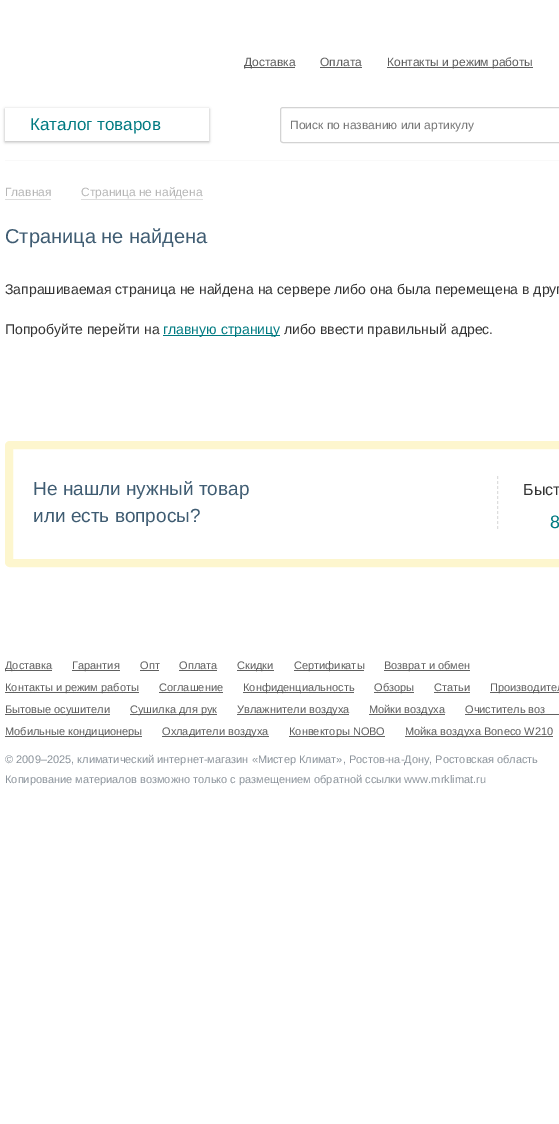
%!PS-Adobe-3.0
%%BoundingBox: 0 0 559 1124
%%LanguageLevel: 3
%%Pages: 1
%%EndComments
%%BeginProlog
/setink { dup -16 bitshift 255 div exch dup -8 bitshift 255 and 255 div exch 255 and 255 div setrgbcolor } def
/usefont { [ exch dup neg 0 0 3 -1 roll 0 0 ] selectfont } def
/setalpha { dup .setfillconstantalpha .setstrokeconstantalpha } def
/rrect { 5 dict begin { /r /h /w /y /x } { exch def } forall
  x r add y moveto x w add y 2 copy h add r arct x w add y h add x 1 index r arct
  x y h add x y r arct x y 2 copy exch w add exch r arct closepath end } def
/softshadow { 12 dict begin { /a /b /q /h /w /y /x } { exch def } forall gsave /was 0 def
  9 -2 -9 { dup b mul 4 div /e exch def 1 sub .425 mul 2.718 exch exp 1 add a .99 .min exch div /now exch def
    1 1 now sub 1 was sub div sub setalpha /was now def
    w h .min e 2 mul add 0 gt { x e sub y e sub w e 2 mul add h e 2 mul add
      q e add b .6 mul add w h .min 2 div e add .min 0 .max rrect fill } if } for grestore end } def
%%EndProlog
%%BeginSetup
<< /PageSize [559 1124] /PageUsesTransparency true >> setpagedevice
%%EndSetup
%%Page: 1 1
0 .pushpdf14devicefilter
0 1124 translate 1 -1 scale
4 setmiterlimit
16#FFFFFF setink
0 0 559 1124 rectfill
16#5D5D5D setink
244 67 51 1 rectfill
/LiberationSans-Regular 12 usefont
244 66 moveto (Доставка) show
320 66 moveto (Оплата) show
320 67 42 1 rectfill
387 67 146 1 rectfill
387 66 moveto (Контакты и режим работы) show
gsave
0 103 moveto 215 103 lineto 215 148 lineto 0 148 lineto closepath 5 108 moveto 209 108 lineto 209 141 lineto 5 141 lineto closepath eoclip newpath
16#B7B7B7 setink
5 109 204 33 0 1.5 1 softshadow
grestore
/LiberationSans-Regular 17 usefont
16#007A81 setink
30 130 moveto (Каталог товаров) show
16#D3D3D3 setink
280.5 107.5 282 35 2.5 rrect stroke
/LiberationSans-Regular 12 usefont
16#757575 setink
290 129 moveto (Поиск по названию или артикулу) show
16#F9F9F9 setink
5 160 554 1 rectfill
16#DDDDDD setink
5 199 46 1 rectfill
16#B6B6B6 setink
5 196 moveto (Главная) show
16#DDDDDD setink
81 199 122 1 rectfill
16#B6B6B6 setink
81 196 moveto (Страница не найдена) show
/LiberationSans-Regular 20 usefont
16#3F5C72 setink
5 243 moveto (Страница не найдена) show
/LiberationSans-Regular 14 usefont
16#333333 setink
5 294 moveto (Запрашиваемая страница не найдена на сервере либо она была перемещена в друг) show
5 334 moveto (Попробуйте перейти на) show
16#007A81 setink
163 335 117 1 rectfill
163 334 moveto (главную страницу) show
16#333333 setink
284 334 moveto (либо ввести правильный адрес.) show
16#FDF6CE setink
8 setlinewidth
9 445 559 118 1 rrect stroke
16#DDDDDD setink
1 setlinewidth
[3 2] 0 setdash
497.5 476 moveto 497.5 529 lineto stroke
/LiberationSans-Regular 19 usefont
16#3F5C72 setink
33 495 moveto (Не нашли нужный товар) show
33 522 moveto (или есть вопросы?) show
/LiberationSans-Regular 16 usefont
16#333333 setink
523 495 moveto (Быст) show
/LiberationSans-Regular 18 usefont
16#007A81 setink
550 528 moveto (8) show
16#606060 setink
5 670 47 1 rectfill
/LiberationSans-Regular 11 usefont
16#5D5D5D setink
5 669 moveto (Доставка) show
16#606060 setink
72 670 48 1 rectfill
16#5D5D5D setink
72 669 moveto (Гарантия) show
140 669 moveto (Опт) show
16#606060 setink
140 670 19 1 rectfill
16#5D5D5D setink
179 669 moveto (Оплата) show
16#606060 setink
179 670 38 1 rectfill
237 670 37 1 rectfill
16#5D5D5D setink
237 669 moveto (Скидки) show
16#606060 setink
294 670 70 1 rectfill
16#5D5D5D setink
294 669 moveto (Сертификаты) show
16#606060 setink
384 670 86 1 rectfill
16#5D5D5D setink
384 669 moveto (Возврат и обмен) show
16#606060 setink
5 692 134 1 rectfill
16#5D5D5D setink
5 691 moveto (Контакты и режим работы) show
159 691 moveto (Соглашение) show
16#606060 setink
159 692 64 1 rectfill
243 692 111 1 rectfill
16#5D5D5D setink
243 691 moveto (Конфиденциальность) show
16#606060 setink
374 692 40 1 rectfill
16#5D5D5D setink
374 691 moveto (Обзоры) show
434 691 moveto (Статьи) show
16#606060 setink
434 692 36 1 rectfill
490 692 69 1 rectfill
16#5D5D5D setink
490 691 moveto (Производител) show
16#606060 setink
5 714 105 1 rectfill
16#5D5D5D setink
5 713 moveto (Бытовые осушители) show
16#606060 setink
130 714 87 1 rectfill
16#5D5D5D setink
130 713 moveto (Сушилка для рук) show
16#606060 setink
237 714 112 1 rectfill
16#5D5D5D setink
237 713 moveto (Увлажнители воздуха) show
16#606060 setink
369 714 76 1 rectfill
16#5D5D5D setink
369 713 moveto (Мойки воздуха) show
465 713 moveto (Очиститель воз) show
16#606060 setink
465 714 94 1 rectfill
5 736 137 1 rectfill
16#5D5D5D setink
5 735 moveto (Мобильные кондиционеры) show
16#606060 setink
162 736 107 1 rectfill
16#5D5D5D setink
162 735 moveto (Охладители воздуха) show
16#606060 setink
289 736 96 1 rectfill
16#5D5D5D setink
289 735 moveto (Конвекторы NOBO) show
16#606060 setink
405 736 148 1 rectfill
16#5D5D5D setink
405 735 moveto (Мойка воздуха Boneco W210) show
16#8A929A setink
5 763 moveto (© 2009–2025, климатический интернет-магазин «Мистер Климат», Ростов-на-Дону, Ростовская область) show
5 783 moveto (Копирование материалов возможно только с размещением обратной ссылки www.mrklimat.ru) show
.poppdf14devicefilter showpage
%%EOF
